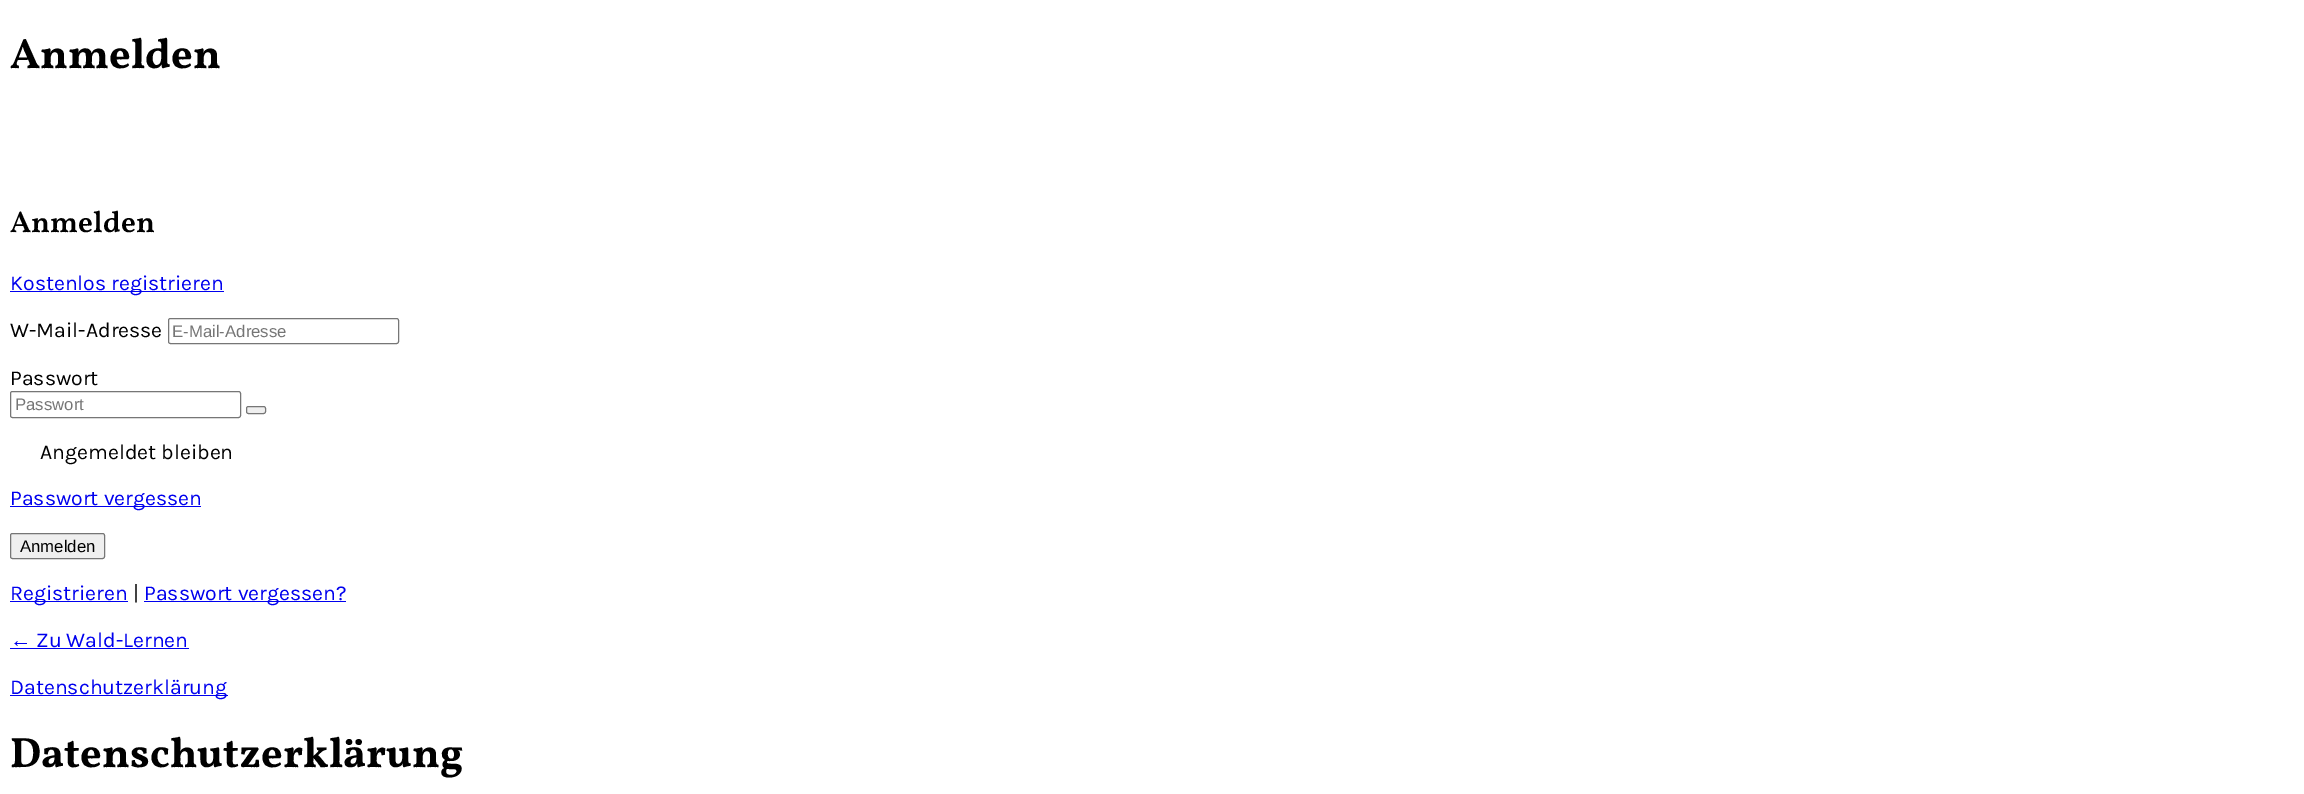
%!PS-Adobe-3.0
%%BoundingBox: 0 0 2304 794
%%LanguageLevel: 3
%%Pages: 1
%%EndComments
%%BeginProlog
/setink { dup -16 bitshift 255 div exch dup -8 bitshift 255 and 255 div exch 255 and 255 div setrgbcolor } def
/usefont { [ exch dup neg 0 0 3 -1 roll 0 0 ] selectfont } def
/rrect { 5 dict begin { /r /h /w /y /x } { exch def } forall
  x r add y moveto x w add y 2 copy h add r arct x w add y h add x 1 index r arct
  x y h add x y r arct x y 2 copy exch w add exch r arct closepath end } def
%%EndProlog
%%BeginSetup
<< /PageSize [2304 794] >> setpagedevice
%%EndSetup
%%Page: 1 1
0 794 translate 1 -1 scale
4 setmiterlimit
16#FFFFFF setink
0 0 2304 794 rectfill
/Vollkorn-Bold 42.5 usefont
16#000000 setink
10 68 moveto (Anmelden) show
/Vollkorn-SemiBold 30 usefont
10 232 moveto (Anmelden) show
16#0000EE setink
10 291 214 1 rectfill
/Karla-Regular 21.25 usefont
10 290 moveto (Kostenlos registrieren) show
16#000000 setink
10 337 moveto (W-Mail-Adresse) show
16#767676 setink
168.5 318.5 230 25 2 rrect stroke
/LiberationSans-Regular 16.75 usefont
16#757575 setink
172 337 moveto (E-Mail-Adresse) show
/Karla-Regular 21.25 usefont
16#000000 setink
10 385 moveto (Passwort) show
16#767676 setink
10.5 391.5 230 26 2 rrect stroke
/LiberationSans-Regular 16.75 usefont
16#757575 setink
15 410 moveto (Passwort) show
16#EFEFEF setink
246.5 406.5 19 7 2 rrect gsave fill grestore
16#767676 setink
stroke
/Karla-Regular 21.25 usefont
16#000000 setink
40 459 moveto (Angemeldet bleiben) show
16#0000EE setink
10 506 191 1 rectfill
10 505 moveto (Passwort vergessen) show
16#EFEFEF setink
10.5 533.5 94 25 2 rrect gsave fill grestore
16#767676 setink
stroke
/LiberationSans-Regular 16.75 usefont
16#000000 setink
20 552 moveto (Anmelden) show
16#0000EE setink
10 601 118 1 rectfill
/Karla-Regular 21.25 usefont
10 600 moveto (Registrieren) show
16#000000 setink
133 600 moveto (|) show
16#0000EE setink
144 601 202 1 rectfill
144 600 moveto (Passwort vergessen?) show
/LiberationSerif-Regular 21.25 usefont
10 647 moveto (←) show
10 648 179 1 rectfill
/Karla-Regular 21.25 usefont
36 647 moveto (Zu Wald-Lernen) show
10 695 218 1 rectfill
10 694 moveto (Datenschutzerklärung) show
/Vollkorn-Bold 42.5 usefont
16#000000 setink
10 767 moveto (Datenschutzerklärung) show
showpage
%%EOF
